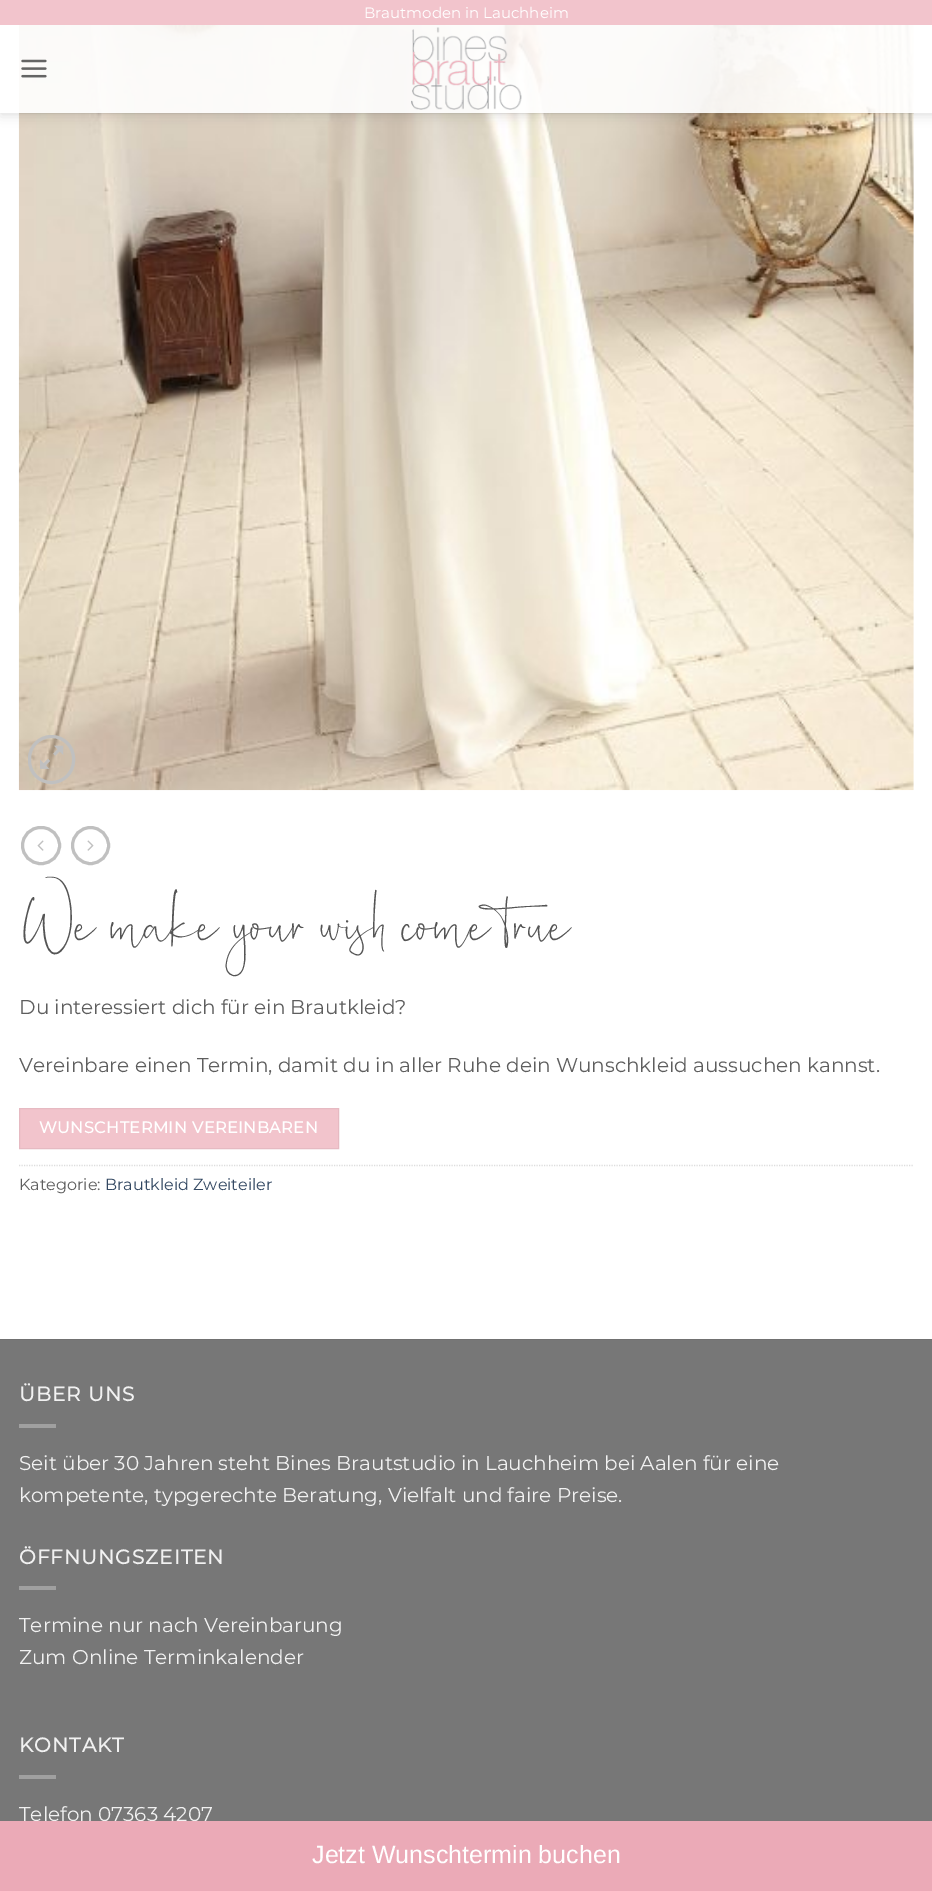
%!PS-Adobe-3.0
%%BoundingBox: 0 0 932 1891
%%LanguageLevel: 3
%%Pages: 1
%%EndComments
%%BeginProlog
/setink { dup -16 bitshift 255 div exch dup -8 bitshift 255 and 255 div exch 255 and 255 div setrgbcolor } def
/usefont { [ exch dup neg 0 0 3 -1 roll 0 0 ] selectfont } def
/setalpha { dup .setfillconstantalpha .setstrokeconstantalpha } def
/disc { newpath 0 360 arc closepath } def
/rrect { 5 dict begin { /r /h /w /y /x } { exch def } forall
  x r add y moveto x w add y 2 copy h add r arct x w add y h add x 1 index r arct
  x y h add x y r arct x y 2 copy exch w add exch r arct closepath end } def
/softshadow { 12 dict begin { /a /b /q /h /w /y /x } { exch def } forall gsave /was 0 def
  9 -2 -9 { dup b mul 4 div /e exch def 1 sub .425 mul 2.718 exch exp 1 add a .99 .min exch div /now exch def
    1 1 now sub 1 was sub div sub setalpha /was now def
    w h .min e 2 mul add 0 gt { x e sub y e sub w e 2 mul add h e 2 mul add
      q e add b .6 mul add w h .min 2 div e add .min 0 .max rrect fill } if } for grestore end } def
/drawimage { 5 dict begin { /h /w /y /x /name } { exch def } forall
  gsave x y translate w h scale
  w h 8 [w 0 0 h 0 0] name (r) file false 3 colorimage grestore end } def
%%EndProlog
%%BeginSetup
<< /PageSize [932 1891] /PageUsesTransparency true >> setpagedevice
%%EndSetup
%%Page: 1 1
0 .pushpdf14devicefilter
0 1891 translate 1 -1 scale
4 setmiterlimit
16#FFFFFF setink
0 0 932 1891 rectfill
(img3.raw) 18 25 896 766 drawimage
gsave
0 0 moveto 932 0 lineto 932 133 lineto 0 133 lineto closepath 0 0 moveto 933 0 lineto 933 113 lineto 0 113 lineto closepath eoclip newpath
16#000000 setink
1 1 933 113 0 6 0.15 softshadow
grestore
16#F2C4CC setink
0 0 932 25 rectfill
/Montserrat-Thin 15 usefont
16#FFFFFF setink
364 18 moveto (Brautmoden in Lauchheim) show
0.9 setalpha
0 25 932 88 rectfill
1 setalpha
(img1.raw) 21 59 26 19 drawimage
(img2.raw) 411 27 111 83 drawimage
0.1 setalpha
16#5E5E5E setink
19 113 895 1 rectfill
1 setalpha
16#C0C0C0 setink
3 setlinewidth
29.5 736.5 44 46 22 rrect stroke
(img4.raw) 40 745 24 24 drawimage
22.5 827.5 37 36 18 rrect stroke
(img5.raw) 37 840 7 11 drawimage
90.5 845.5 18 disc stroke
(img6.raw) 87 840 7 11 drawimage
/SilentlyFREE-Regular 68 usefont
16#555555 setink
19 938 moveto (We make your wish come true) show
/Montserrat-Thin 20 usefont
16#5E5E5E setink
19 1014 moveto (Du interessiert dich für ein Brautkleid?) show
19 1072 moveto (Vereinbare einen Termin, damit du in aller Ruhe dein Wunschkleid aussuchen kannst.) show
16#F2C4CC setink
19.5 1108.5 moveto 338.5 1108.5 lineto 338.5 1148.5 lineto 19.5 1148.5 lineto closepath gsave fill grestore
16#E6BAC2 setink
1 setlinewidth
stroke
/Montserrat-Bold 16 usefont
16#FFFFFF setink
39 1133 moveto 0.5 0 (WUNSCHTERMIN VEREINBAREN) ashow
16#DDDDDD setink
1.2 setlinewidth
[1.25 1.25] 0 setdash
19 1165.5 moveto 914 1165.5 lineto stroke
/Montserrat-Thin 16 usefont
16#5E5E5E setink
19 1190 moveto (Kategorie:) show
16#334862 setink
105 1190 moveto (Brautkleid Zweiteiler) show
16#777777 setink
0 1340 932 481 rectfill
16#717171 setink
0 1339 932 1 rectfill
/Montserrat-Bold 20 usefont
16#F1F1F1 setink
19 1401 moveto 1 0 (ÜBER UNS) ashow
16#A0A0A0 setink
19 1424 37 4 rectfill
/Montserrat-Thin 20 usefont
16#F1F1F1 setink
19 1470 moveto (Seit über 30 Jahren steht Bines Brautstudio in Lauchheim bei Aalen für eine) show
19 1502 moveto (kompetente, typgerechte Beratung, Vielfalt und faire Preise.) show
/Montserrat-Bold 20 usefont
19 1564 moveto 1 0 (ÖFFNUNGSZEITEN) ashow
16#A0A0A0 setink
19 1586 37 4 rectfill
/Montserrat-Thin 20 usefont
16#F1F1F1 setink
19 1632 moveto (Termine nur nach Vereinbarung) show
19 1664 moveto (Zum Online Terminkalender) show
/Montserrat-Bold 20 usefont
19 1752 moveto 1 0 (KONTAKT) ashow
16#A0A0A0 setink
19 1775 37 4 rectfill
/Montserrat-Thin 20 usefont
16#F1F1F1 setink
19 1821 moveto (Telefon 07363 4207) show
16#EBAAB7 setink
0 1821 932 70 rectfill
/LiberationSans-Regular 25 usefont
16#FFFFFF setink
312 1863 moveto (Jetzt Wunschtermin buchen) show
.poppdf14devicefilter showpage
%%EOF
